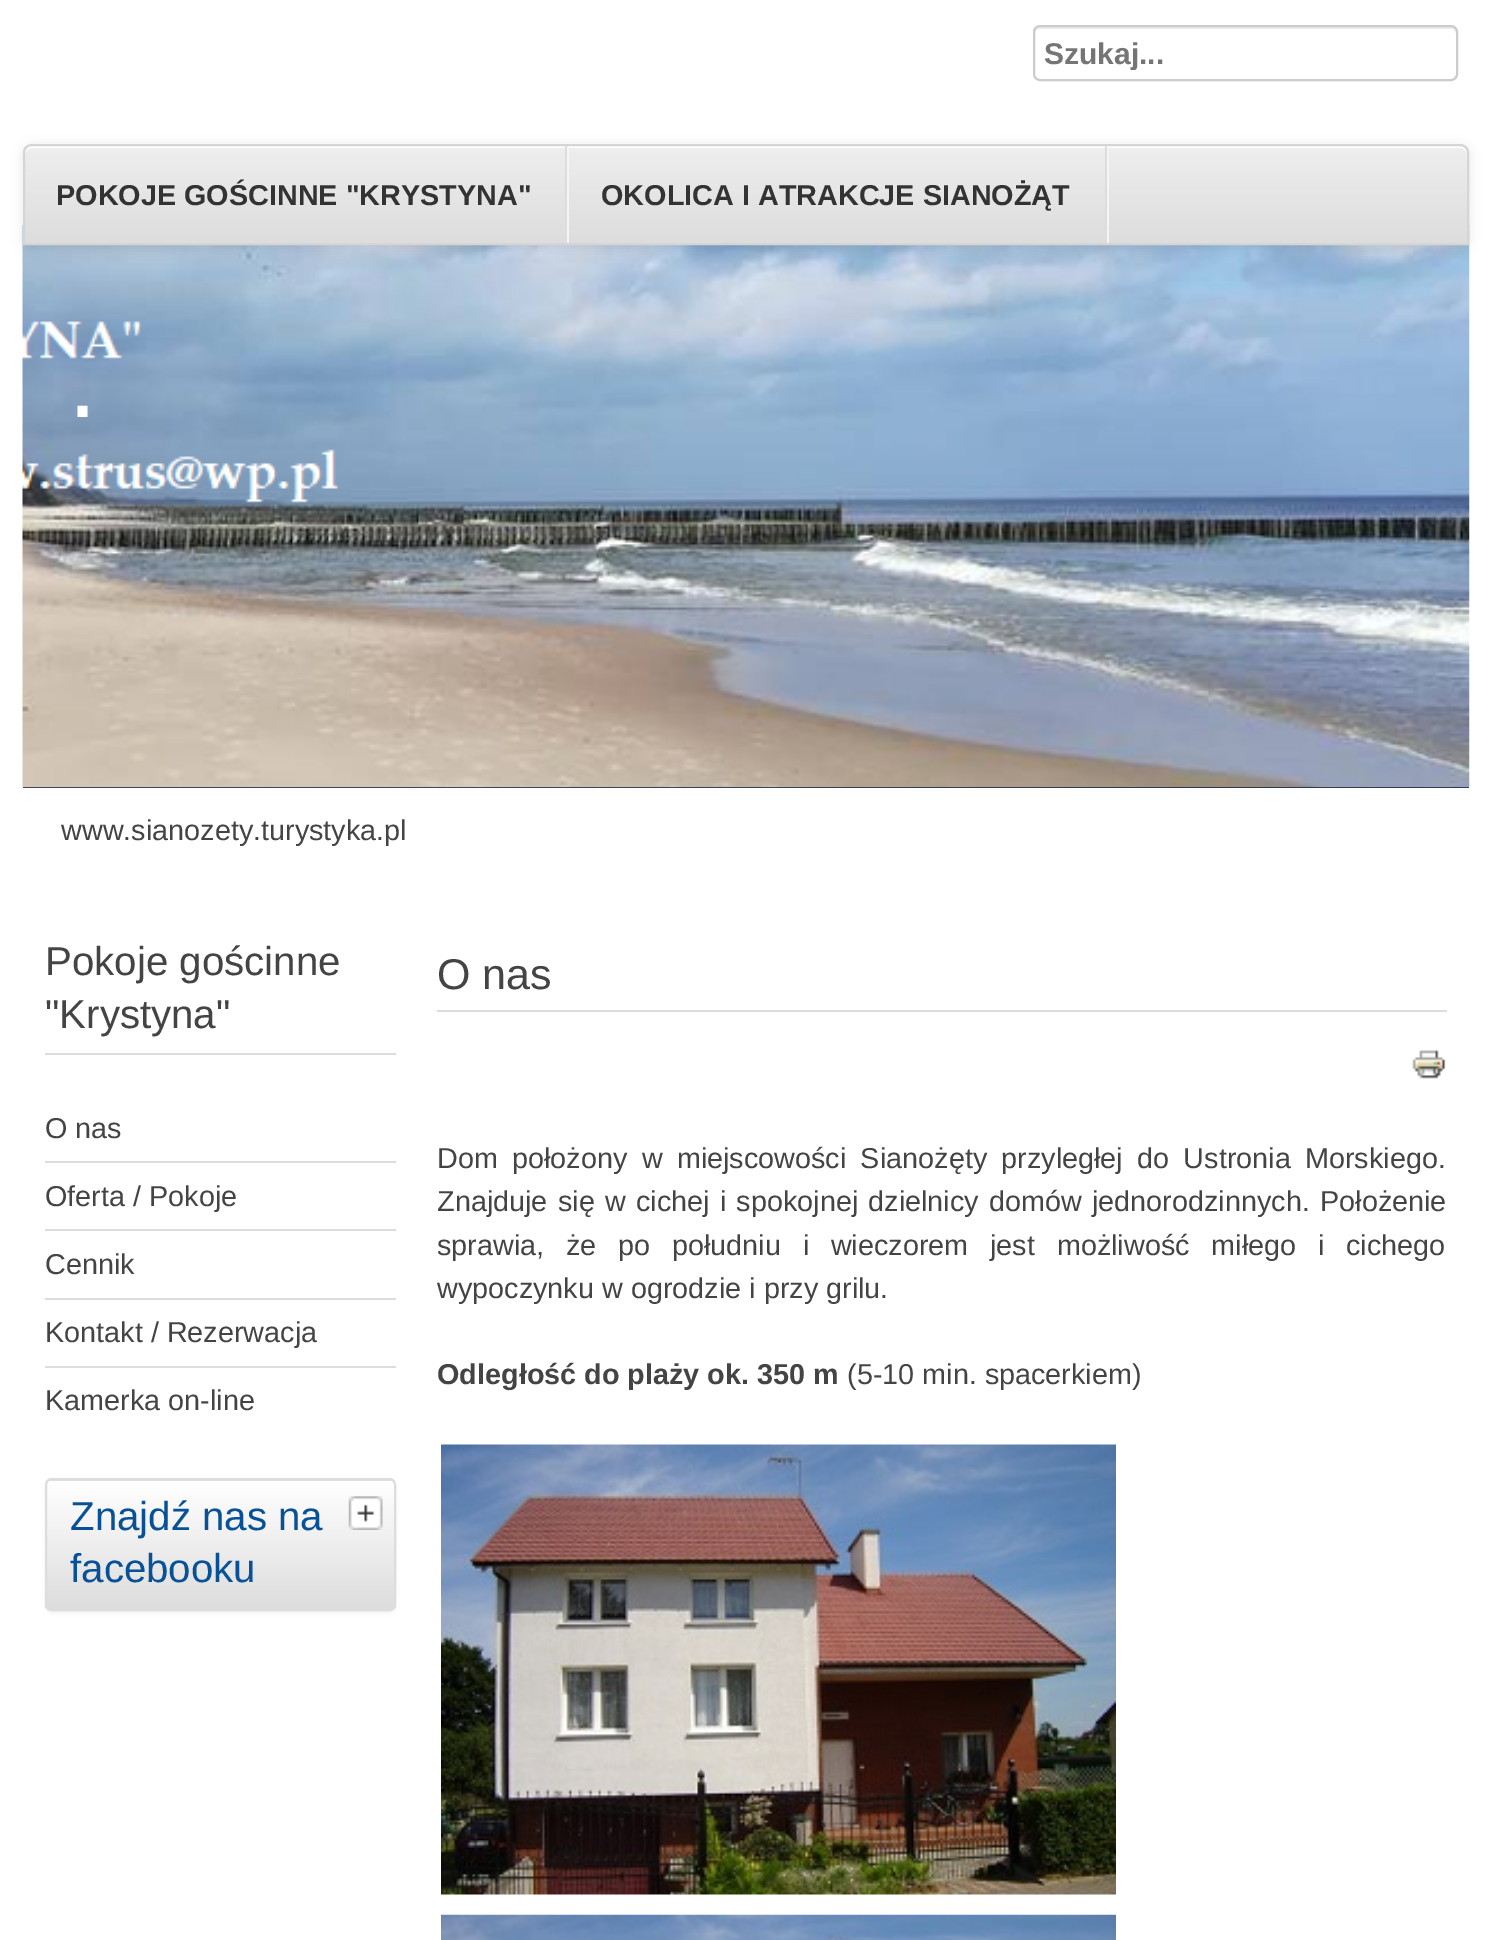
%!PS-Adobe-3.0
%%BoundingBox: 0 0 1491 1940
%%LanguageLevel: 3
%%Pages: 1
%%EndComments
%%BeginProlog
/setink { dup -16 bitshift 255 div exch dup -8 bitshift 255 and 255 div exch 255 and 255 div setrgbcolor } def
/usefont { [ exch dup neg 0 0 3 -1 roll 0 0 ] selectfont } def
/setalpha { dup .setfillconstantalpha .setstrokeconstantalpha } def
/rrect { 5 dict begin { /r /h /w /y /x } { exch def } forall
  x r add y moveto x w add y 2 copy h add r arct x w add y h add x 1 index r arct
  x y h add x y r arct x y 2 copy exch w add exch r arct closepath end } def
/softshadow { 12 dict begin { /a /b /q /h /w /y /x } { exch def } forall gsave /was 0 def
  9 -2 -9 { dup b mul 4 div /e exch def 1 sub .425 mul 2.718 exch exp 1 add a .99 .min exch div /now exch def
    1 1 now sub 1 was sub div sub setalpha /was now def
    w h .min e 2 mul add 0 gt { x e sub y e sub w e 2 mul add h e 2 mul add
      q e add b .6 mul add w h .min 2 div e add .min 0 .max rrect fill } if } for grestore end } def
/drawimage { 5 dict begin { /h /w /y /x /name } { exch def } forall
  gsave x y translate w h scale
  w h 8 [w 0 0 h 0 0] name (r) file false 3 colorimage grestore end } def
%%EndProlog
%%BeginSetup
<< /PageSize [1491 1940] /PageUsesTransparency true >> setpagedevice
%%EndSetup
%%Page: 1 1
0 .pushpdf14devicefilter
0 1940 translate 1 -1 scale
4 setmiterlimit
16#FFFFFF setink
0 0 1491 1940 rectfill
16#ECECEC setink
1040 29 moveto 1451 29 lineto 1454 29 1456 31 1456 34 curveto 1456 32 lineto 1456 29 1454 27 1451 27 curveto 1040 27 lineto 1037 27 1035 29 1035 32 curveto 1035 34 lineto 1035 31 1037 29 1040 29 curveto closepath fill
16#CCCCCC setink
2 setlinewidth
1034 26 423 54 6 rrect stroke
gsave
1044 36 374 34 rectclip
/LiberationSans-Bold 30 usefont
16#757575 setink
1044 64 moveto (Szukaj...) show
grestore
16#0C1A3E setink
23 787 1446 1 rectfill
(img1.raw) 22 225 1448 563 drawimage
16#000000 setink
23 146 1446 102 9 5.5 0.1 softshadow
gsave
32 144 moveto 1460 144 lineto 1465 144 1469 148 1469 153 curveto 1469 245 lineto 23 245 lineto 23 153 lineto 23 148 27 144 32 144 curveto closepath clip newpath
gsave 23 146 moveto 1469 146 lineto 1469 243 lineto 23 243 lineto closepath clip newpath
<< /ShadingType 2 /ColorSpace /DeviceRGB /Coords [746 146 746 243] /Extend [true true] /Function << /FunctionType 2 /Domain [0 1] /C0 [0.933 0.933 0.933] /C1 [0.867 0.867 0.867] /N 1 >> >> shfill grestore
grestore
16#FFFFFF setink
32 148 moveto 1460 148 lineto 1464 148 1467 152 1467 155 curveto 1467 153 lineto 1467 149 1464 146 1460 146 curveto 32 146 lineto 28 146 25 149 25 153 curveto 25 155 lineto 25 152 28 148 32 148 curveto closepath fill
16#D5D5D5 setink
32 145 moveto 1460 145 lineto 1464.5 145 1468 148.5 1468 153 curveto 1468 244 lineto 24 244 lineto 24 153 lineto 24 148.5 27.5 145 32 145 curveto closepath stroke
16#F5F5F5 setink
34 146 moveto 32 146 lineto 567 146 lineto 567 243 lineto 569 243 lineto 569 146 lineto closepath fill
16#DDDDDD setink
565 146 2 83 rectfill
/LiberationSans-Bold 28.8 usefont
16#333333 setink
56 205 moveto (POKOJE GOŚCINNE "KRYSTYNA") show
16#F5F5F5 setink
569 146 moveto 1107 146 lineto 1107 243 lineto 1109 243 lineto 1109 146 lineto closepath fill
16#DDDDDD setink
1105 146 2 83 rectfill
16#333333 setink
601 205 moveto (OKOLICA I ATRAKCJE SIANOŻĄT) show
/LiberationSans-Regular 104 usefont
16#FFFFFF setink
68 417 moveto (.) show
/LiberationSans-Regular 28.8 usefont
16#444444 setink
61 840 moveto (www.sianozety.turystyka.pl) show
16#DDDDDD setink
45 1053 351 2 rectfill
/LiberationSans-Regular 40.25 usefont
16#444444 setink
45 975 moveto (Pokoje gościnne) show
45 1028 moveto ("Krystyna") show
16#DDDDDD setink
45 1161 351 2 rectfill
/LiberationSans-Regular 28.8 usefont
16#444444 setink
45 1138 moveto (O nas) show
16#DDDDDD setink
45 1229 351 2 rectfill
16#444444 setink
45 1206 moveto (Oferta / Pokoje) show
16#DDDDDD setink
45 1298 351 2 rectfill
16#444444 setink
45 1274 moveto (Cennik) show
16#DDDDDD setink
45 1366 351 2 rectfill
16#444444 setink
45 1342 moveto (Kontakt / Rezerwacja) show
45 1410 moveto (Kamerka on-line) show
16#000000 setink
45 1481 351 132 7 2 0.05 softshadow
16#DDDDDD setink
45 1478 351 133 7 rrect fill
gsave
45 1478 351 133 7 rrect clip newpath
gsave 45 1481 moveto 396 1481 lineto 396 1609 lineto 45 1609 lineto closepath clip newpath
<< /ShadingType 2 /ColorSpace /DeviceRGB /Coords [221 1481 221 1609] /Extend [true true] /Function << /FunctionType 2 /Domain [0 1] /C0 [1 1 1] /C1 [0.867 0.867 0.867] /N 1 >> >> shfill grestore
grestore
46 1479 349 131 6 rrect stroke
/LiberationSans-Regular 40.25 usefont
16#095197 setink
70 1530 moveto (Znajdź nas na) show
(img2.raw) 348 1496 35 34 drawimage
70 1582 moveto (facebooku) show
16#DDDDDD setink
437 1010 1010 2 rectfill
/LiberationSans-Regular 43 usefont
16#444444 setink
437 989 moveto (O nas) show
(img3.raw) 1412 1050 34 29 drawimage
/LiberationSans-Regular 28.8 usefont
437 1168 moveto 6.25 0 32 (Dom położony w miejscowości Sianożęty przyległej do Ustronia Morskiego.) widthshow
437 1211 moveto 2.25 0 32 (Znajduje się w cichej i spokojnej dzielnicy domów jednorodzinnych. Położenie) widthshow
437 1255 moveto 13.75 0 32 (sprawia, że po południu i wieczorem jest możliwość miłego i cichego) widthshow
437 1298 moveto (wypoczynku w ogrodzie i przy grilu.) show
/LiberationSans-Bold 28.8 usefont
437 1384 moveto (Odległość do plaży ok. 350 m) show
/LiberationSans-Regular 28.8 usefont
847 1384 moveto (\(5-10 min. spacerkiem\)) show
(img4.raw) 441 1444 675 451 drawimage
(img5.raw) 441 1914 675 26 drawimage
.poppdf14devicefilter showpage
%%EOF
